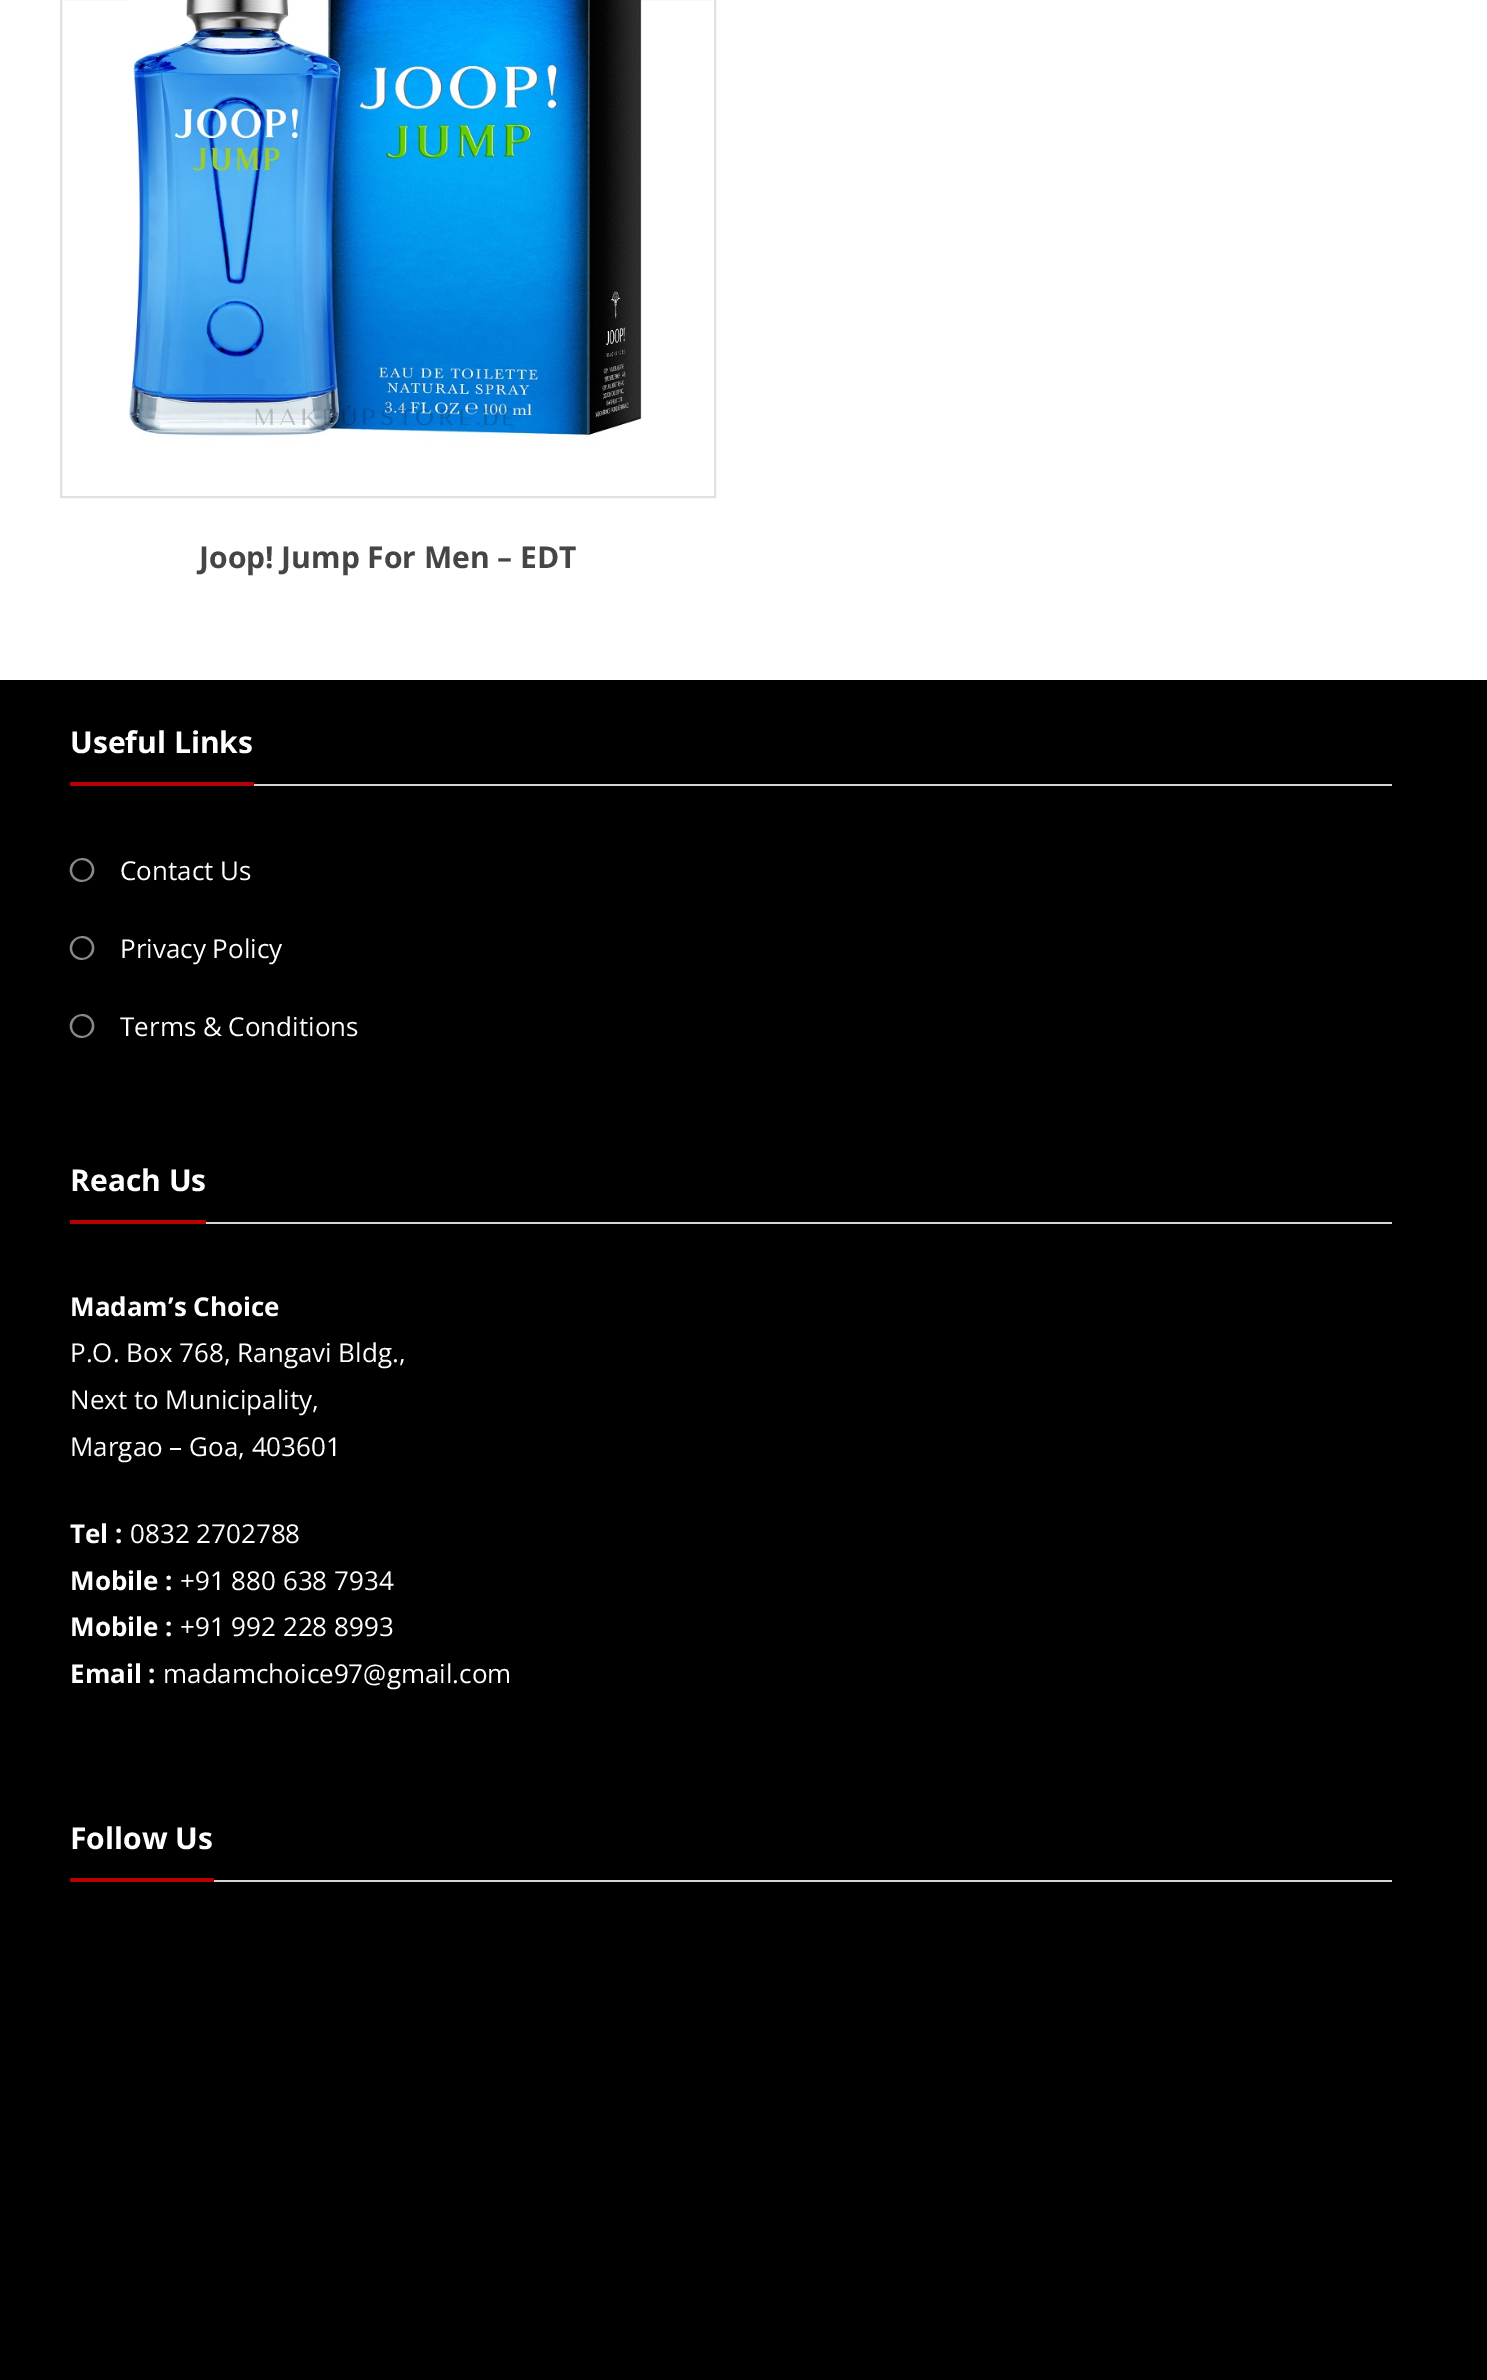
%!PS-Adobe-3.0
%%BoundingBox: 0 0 1487 2380
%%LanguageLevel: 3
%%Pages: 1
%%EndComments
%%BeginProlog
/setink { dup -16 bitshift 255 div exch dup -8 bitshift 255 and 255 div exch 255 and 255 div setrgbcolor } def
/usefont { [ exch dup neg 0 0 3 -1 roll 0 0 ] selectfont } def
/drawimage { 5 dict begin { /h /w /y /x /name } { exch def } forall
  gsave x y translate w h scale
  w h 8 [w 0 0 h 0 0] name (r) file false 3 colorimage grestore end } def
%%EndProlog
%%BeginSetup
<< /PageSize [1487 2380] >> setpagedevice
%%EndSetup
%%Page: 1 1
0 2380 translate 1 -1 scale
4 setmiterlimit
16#FFFFFF setink
0 0 1487 2380 rectfill
16#E1E1E1 setink
2 setlinewidth
61 -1 654 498 rectstroke
(img1.raw) 127 0 515 444 drawimage
/OpenSans-Bold 30 usefont
16#454545 setink
199 568 moveto (Joop! Jump For Men – EDT) show
[
    [0 680 1487 1700 16#000000]
    [254 784 1138 2 16#D6D6D6]
    [70 782 184 4 16#B70000]
] { aload pop setink rectfill } forall
16#FFFFFF setink
70 753 moveto (Useful Links) show
16#888888 setink
86 861 moveto 74 855.5 66 874 78 879 curveto 90 884.5 98 866 86 861 curveto closepath 92.5 864 moveto 100.5 877.5 79.5 889.5 71.5 876 curveto 63.5 862.5 84.5 850.5 92.5 864 curveto closepath fill
/OpenSans-Regular 26 usefont
16#FFFFFF setink
120 880 moveto (Contact Us) show
16#888888 setink
86 939 moveto 74 933.5 66 952 78 957 curveto 90 962.5 98 944 86 939 curveto closepath 92.5 942 moveto 100.5 955.5 79.5 967.5 71.5 954 curveto 63.5 940.5 84.5 928.5 92.5 942 curveto closepath fill
16#FFFFFF setink
120 958 moveto (Privacy Policy) show
16#888888 setink
86 1017 moveto 74 1011.5 66 1030 78 1035 curveto 90 1040.5 98 1022 86 1017 curveto closepath 92.5 1020 moveto 100.5 1033.5 79.5 1045.5 71.5 1032 curveto 63.5 1018.5 84.5 1006.5 92.5 1020 curveto closepath fill
16#FFFFFF setink
120 1036 moveto (Terms & Conditions) show
16#D6D6D6 setink
206 1222 1186 2 rectfill
16#B70000 setink
70 1220 136 4 rectfill
/OpenSans-Bold 30 usefont
16#FFFFFF setink
70 1191 moveto (Reach Us) show
/OpenSans-Bold 26 usefont
70 1316 moveto (Madam’s Choice) show
/OpenSans-Regular 26 usefont
[
    [(P.O. Box 768, Rangavi Bldg.,) 70 1362]
    [(Next to Municipality,) 70 1409]
    [(Margao – Goa, 403601) 70 1456]
] { aload pop moveto show } forall
/OpenSans-Bold 26 usefont
70 1543 moveto (Tel :) show
/OpenSans-Regular 26 usefont
130 1543 moveto (0832 2702788) show
/OpenSans-Bold 26 usefont
70 1590 moveto (Mobile :) show
/OpenSans-Regular 26 usefont
180 1590 moveto (+91 880 638 7934) show
/OpenSans-Bold 26 usefont
70 1636 moveto (Mobile :) show
/OpenSans-Regular 26 usefont
180 1636 moveto (+91 992 228 8993) show
/OpenSans-Bold 26 usefont
70 1683 moveto (Email :) show
/OpenSans-Regular 26 usefont
163 1683 moveto (madamchoice97@gmail.com) show
16#D6D6D6 setink
214 1880 1178 2 rectfill
16#B70000 setink
70 1878 144 4 rectfill
/OpenSans-Bold 30 usefont
16#FFFFFF setink
70 1849 moveto (Follow Us) show
showpage
%%EOF
